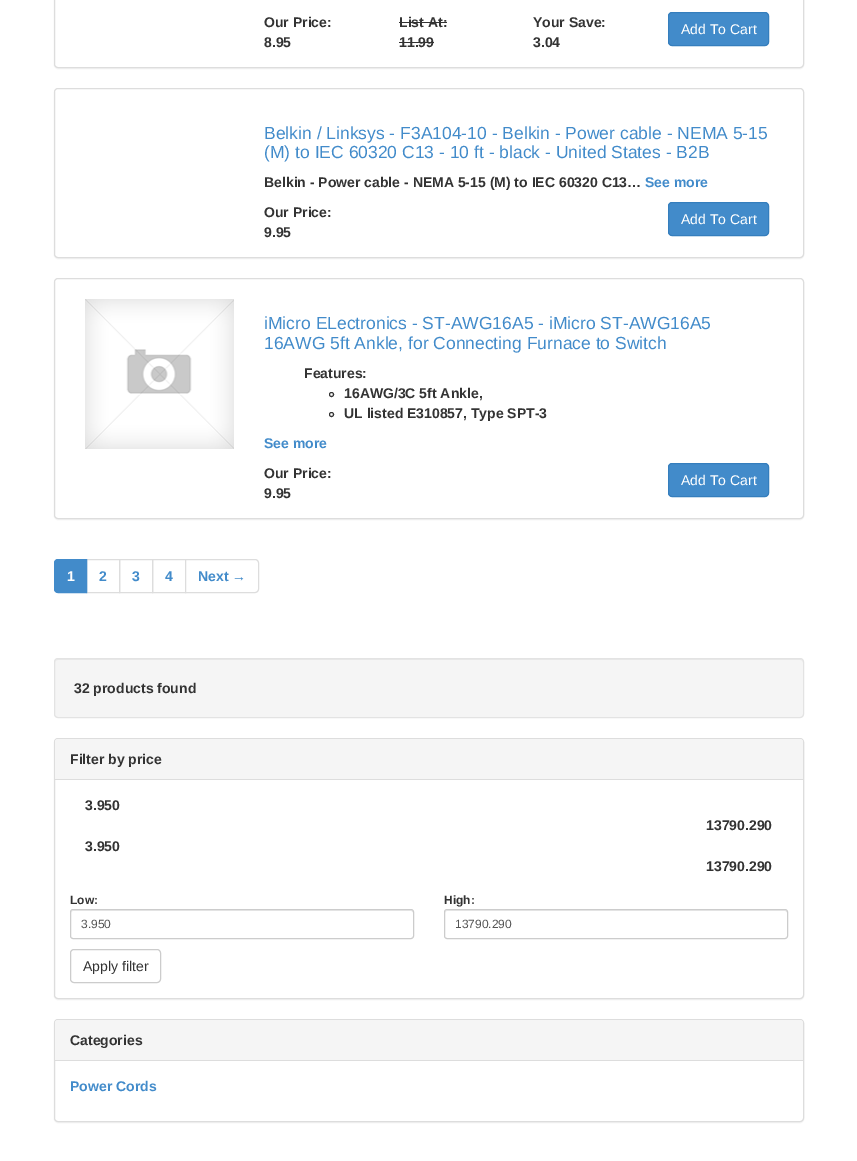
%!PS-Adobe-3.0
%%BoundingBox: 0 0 857 1161
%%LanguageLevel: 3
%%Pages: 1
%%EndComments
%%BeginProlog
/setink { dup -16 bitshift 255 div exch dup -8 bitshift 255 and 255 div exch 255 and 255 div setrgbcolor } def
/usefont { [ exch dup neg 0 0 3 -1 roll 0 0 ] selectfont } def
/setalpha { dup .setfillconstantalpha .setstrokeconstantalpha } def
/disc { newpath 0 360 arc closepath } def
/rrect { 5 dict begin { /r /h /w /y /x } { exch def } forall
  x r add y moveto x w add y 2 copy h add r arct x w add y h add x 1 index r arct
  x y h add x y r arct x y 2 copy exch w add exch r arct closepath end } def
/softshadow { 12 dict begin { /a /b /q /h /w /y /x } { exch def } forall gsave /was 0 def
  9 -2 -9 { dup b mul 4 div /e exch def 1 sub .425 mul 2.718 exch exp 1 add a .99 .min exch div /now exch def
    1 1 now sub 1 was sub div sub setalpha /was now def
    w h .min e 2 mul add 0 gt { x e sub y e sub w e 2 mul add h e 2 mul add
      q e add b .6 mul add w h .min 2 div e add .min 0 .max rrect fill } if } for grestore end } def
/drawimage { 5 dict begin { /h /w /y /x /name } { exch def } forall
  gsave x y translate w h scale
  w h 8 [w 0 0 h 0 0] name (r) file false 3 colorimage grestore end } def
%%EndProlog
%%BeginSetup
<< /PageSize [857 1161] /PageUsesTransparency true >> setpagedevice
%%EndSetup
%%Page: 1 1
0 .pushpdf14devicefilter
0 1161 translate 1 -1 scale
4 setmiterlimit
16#FFFFFF setink
0 0 857 1161 rectfill
16#000000 setink
54 -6 750 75 4 0.5 0.05 softshadow
16#FFFFFF setink
54.5 -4.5 749 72 3.5 rrect gsave fill grestore
16#DDDDDD setink
stroke
/LiberationSans-Bold 14 usefont
16#333333 setink
[
    [(Our Price:) 264 27]
    [(8.95) 264 47]
    [(List At:) 399 27]
] { aload pop moveto show } forall
399 22 48 1 rectfill
399 47 moveto (11.99) show
399 42 35 1 rectfill
533 27 moveto (Your Save:) show
533 47 moveto (3.04) show
16#428BCA setink
668.5 12.5 100 33 3.5 rrect gsave fill grestore
16#357EBD setink
stroke
/LiberationSans-Regular 14 usefont
16#FFFFFF setink
681 34 moveto (Add To Cart) show
16#000000 setink
54 89 750 170 4 0.5 0.05 softshadow
16#FFFFFF setink
54.5 88.5 749 169 3.5 rrect gsave fill grestore
16#DDDDDD setink
stroke
/LiberationSans-Regular 17.5 usefont
16#428BCA setink
264 139 moveto (Belkin / Linksys - F3A104-10 - Belkin - Power cable - NEMA 5-15) show
264 158 moveto (\(M\) to IEC 60320 C13 - 10 ft - black - United States - B2B) show
/LiberationSans-Bold 14 usefont
16#333333 setink
264 187 moveto (Belkin - Power cable - NEMA 5-15 \(M\) to IEC 60320 C13…) show
16#428BCA setink
645 187 moveto (See more) show
16#333333 setink
264 217 moveto (Our Price:) show
264 237 moveto (9.95) show
16#428BCA setink
668.5 202.5 100 33 3.5 rrect gsave fill grestore
16#357EBD setink
stroke
/LiberationSans-Regular 14 usefont
16#FFFFFF setink
681 224 moveto (Add To Cart) show
16#000000 setink
54 279 750 241 4 0.5 0.05 softshadow
16#FFFFFF setink
54.5 278.5 749 240 3.5 rrect gsave fill grestore
16#DDDDDD setink
stroke
(img1.raw) 85 299 149 150 drawimage
/LiberationSans-Regular 17.5 usefont
16#428BCA setink
264 329 moveto (iMicro ELectronics - ST-AWG16A5 - iMicro ST-AWG16A5) show
264 349 moveto (16AWG 5ft Ankle, for Connecting Furnace to Switch) show
/LiberationSans-Bold 14 usefont
16#333333 setink
304 378 moveto (Features:) show
331.5 394.5 2 disc stroke
344 398 moveto (16AWG/3C 5ft Ankle,) show
331.5 414.5 2 disc stroke
344 418 moveto (UL listed E310857, Type SPT-3) show
16#428BCA setink
264 448 moveto (See more) show
16#333333 setink
264 478 moveto (Our Price:) show
264 498 moveto (9.95) show
16#428BCA setink
668.5 463.5 100 33 3.5 rrect gsave fill grestore
16#357EBD setink
stroke
/LiberationSans-Regular 14 usefont
16#FFFFFF setink
681 485 moveto (Add To Cart) show
16#DDDDDD setink
86.5 559.5 33 33 rectstroke
16#428BCA setink
58 559.5 moveto 86.5 559.5 lineto 86.5 592.5 lineto 58 592.5 lineto 56 592.5 54.5 591 54.5 589 curveto 54.5 563 lineto 54.5 561 56 559.5 58 559.5 curveto closepath gsave fill grestore
stroke
/LiberationSans-Bold 14 usefont
16#FFFFFF setink
67 581 moveto (1) show
16#428BCA setink
99 581 moveto (2) show
16#DDDDDD setink
119.5 559.5 33 33 rectstroke
16#428BCA setink
132 581 moveto (3) show
16#DDDDDD setink
152.5 559.5 33 33 rectstroke
16#428BCA setink
165 581 moveto (4) show
16#FFFFFF setink
185.5 559.5 moveto 255 559.5 lineto 257 559.5 258.5 561 258.5 563 curveto 258.5 589 lineto 258.5 591 257 592.5 255 592.5 curveto 185.5 592.5 lineto closepath gsave fill grestore
16#DDDDDD setink
stroke
16#428BCA setink
198 581 moveto (Next →) show
16#F5F5F5 setink
54 658 750 60 4 rrect fill
16#E9E9E9 setink
58 660 moveto 800 660 lineto 802 660 803 661 803 663 curveto 803 661 802 659 800 659 curveto 58 659 lineto 56 659 55 661 55 663 curveto 55 661 56 660 58 660 curveto closepath fill
16#E3E3E3 setink
54.5 658.5 749 59 3.5 rrect stroke
16#333333 setink
74 693 moveto (32 products found) show
16#000000 setink
54 739 750 261 4 0.5 0.05 softshadow
16#FFFFFF setink
54.5 738.5 749 260 3.5 rrect gsave fill grestore
16#DDDDDD setink
stroke
16#F5F5F5 setink
58 739 moveto 800 739 lineto 801.5 739 803 740.5 803 742 curveto 803 780 lineto 55 780 lineto 55 742 lineto 55 740.5 56.5 739 58 739 curveto closepath fill
16#DDDDDD setink
55 779 748 1 rectfill
16#333333 setink
[
    [(Filter by price) 70 764]
    [(3.950) 85 810]
    [(13790.290) 706 830]
    [(3.950) 85 851]
    [(13790.290) 706 871]
] { aload pop moveto show } forall
/LiberationSans-Bold 12 usefont
70 904 moveto (Low:) show
444 904 moveto (High:) show
16#ECECEC setink
73 911 moveto 411 911 lineto 412 911 413 912 413 913 curveto 413 912 413 910 411 910 curveto 73 910 lineto 71 911 lineto 71 913 lineto 71 912 72 911 73 911 curveto closepath fill
16#CCCCCC setink
70.5 909.5 343 29 2.5 rrect stroke
/LiberationSans-Regular 12 usefont
16#555555 setink
81 928 moveto (3.950) show
16#ECECEC setink
447 911 moveto 785 911 lineto 786 911 787 912 787 913 curveto 787 912 787 910 785 910 curveto 447 910 lineto 445 911 lineto 445 913 lineto 445 912 446 911 447 911 curveto closepath fill
16#CCCCCC setink
444.5 909.5 343 29 2.5 rrect stroke
16#555555 setink
455 928 moveto (13790.290) show
16#CCCCCC setink
70.5 949.5 90 33 3.5 rrect stroke
/LiberationSans-Regular 14 usefont
16#333333 setink
83 971 moveto (Apply filter) show
16#000000 setink
54 1020 750 103 4 0.5 0.05 softshadow
16#FFFFFF setink
54.5 1019.5 749 102 3.5 rrect gsave fill grestore
16#DDDDDD setink
stroke
16#F5F5F5 setink
58 1020 moveto 800 1020 lineto 801.5 1020 803 1021.5 803 1023 curveto 803 1061 lineto 55 1061 lineto 55 1023 lineto 55 1021.5 56.5 1020 58 1020 curveto closepath fill
16#DDDDDD setink
55 1060 748 1 rectfill
/LiberationSans-Bold 14 usefont
16#333333 setink
70 1045 moveto (Categories) show
16#428BCA setink
70 1091 moveto (Power Cords) show
.poppdf14devicefilter showpage
%%EOF
